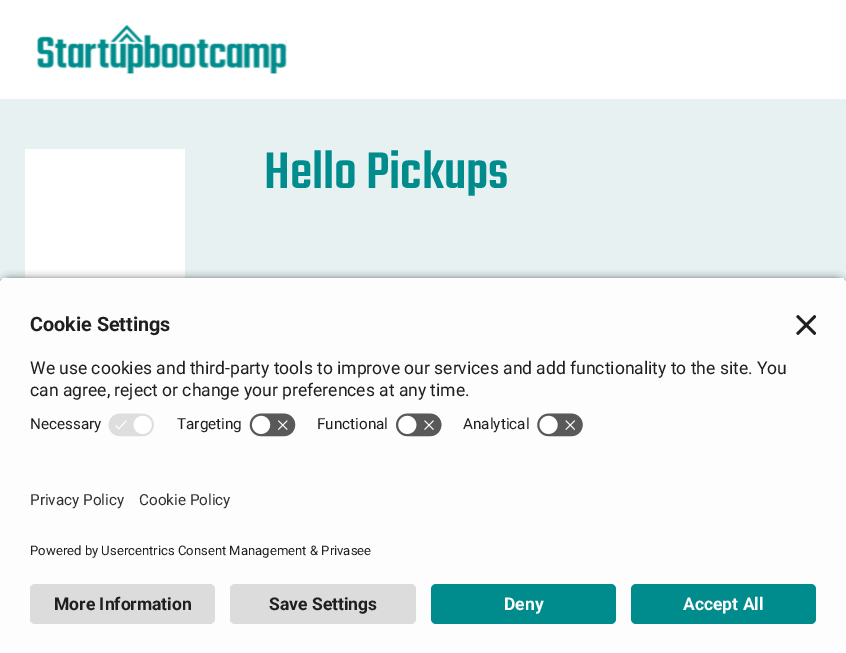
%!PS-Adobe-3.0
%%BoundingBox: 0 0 846 653
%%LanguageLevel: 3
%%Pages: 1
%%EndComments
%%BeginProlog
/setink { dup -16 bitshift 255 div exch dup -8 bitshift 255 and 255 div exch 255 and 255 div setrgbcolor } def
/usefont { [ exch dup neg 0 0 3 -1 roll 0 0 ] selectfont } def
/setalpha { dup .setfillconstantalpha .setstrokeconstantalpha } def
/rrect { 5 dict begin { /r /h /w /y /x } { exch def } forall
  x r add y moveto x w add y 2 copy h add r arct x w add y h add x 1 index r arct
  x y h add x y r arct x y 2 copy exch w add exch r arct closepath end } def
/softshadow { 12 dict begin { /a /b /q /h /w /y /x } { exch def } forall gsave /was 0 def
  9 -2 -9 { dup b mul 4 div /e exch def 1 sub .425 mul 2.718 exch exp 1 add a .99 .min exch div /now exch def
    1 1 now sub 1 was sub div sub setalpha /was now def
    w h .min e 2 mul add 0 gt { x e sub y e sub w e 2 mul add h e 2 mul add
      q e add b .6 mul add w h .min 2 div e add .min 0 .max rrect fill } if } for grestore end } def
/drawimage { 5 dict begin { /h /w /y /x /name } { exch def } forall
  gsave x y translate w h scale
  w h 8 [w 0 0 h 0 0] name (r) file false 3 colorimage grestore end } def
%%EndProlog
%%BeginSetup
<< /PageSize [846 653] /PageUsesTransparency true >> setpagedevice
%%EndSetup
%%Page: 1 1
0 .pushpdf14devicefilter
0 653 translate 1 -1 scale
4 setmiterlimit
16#FFFFFF setink
0 0 846 653 rectfill
(img1.raw) 37 25 250 49 drawimage
16#E7F1F1 setink
0 99 846 187 rectfill
16#FFFFFF setink
25 149 160 129 rectfill
/Teko-Medium 56.25 usefont
16#008C8C setink
264 188 moveto (Hello Pickups) show
16#000000 setink
0 280 846 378 10 4.5 0.8 softshadow
gsave
10 276 moveto 836 276 lineto 841.5 276 846 280.5 846 286 curveto 846 456 lineto 0 456 lineto 0 286 lineto 0 280.5 4.5 276 10 276 curveto closepath clip newpath
16#FDFDFD setink
0 278 846 178 rectfill
0 278 846 128 rectfill
grestore
/Roboto-Bold 19.75 usefont
16#1F1F1F setink
30 331 moveto (Cookie Settings) show
(img2.raw) 796 315 20 20 drawimage
/Roboto-Regular 17.5 usefont
30 374 moveto (We use cookies and third-party tools to improve our services and add functionality to the site. You) show
30 396 moveto (can agree, reject or change your preferences at any time.) show
/Roboto-Regular 15.25 usefont
30 429 moveto (Necessary) show
(img3.raw) 108 413 46 24 drawimage
177 429 moveto (Targeting) show
(img4.raw) 249 413 47 24 drawimage
317 429 moveto (Functional) show
(img5.raw) 396 413 47 24 drawimage
463 429 moveto (Analytical) show
(img6.raw) 536 413 48 24 drawimage
16#FDFDFD setink
0 456 846 197 rectfill
16#303030 setink
30 505 moveto (Privacy Policy) show
139 505 moveto (Cookie Policy) show
/Roboto-Regular 13.1 usefont
16#1F1F1F setink
30 555 moveto (Powered by Usercentrics Consent Management & Privasee) show
16#DCDCDC setink
30 584 185 40 5 rrect fill
/Roboto-Bold 17.5 usefont
16#1F1F1F setink
54 610 moveto (More Information) show
16#DCDCDC setink
230 584 186 40 5 rrect fill
16#1F1F1F setink
269 610 moveto (Save Settings) show
16#008C8C setink
431 584 185 40 5 rrect fill
16#FDFDFD setink
504 610 moveto (Deny) show
16#008C8C setink
631 584 185 40 5 rrect fill
16#FDFDFD setink
683 610 moveto (Accept All) show
.poppdf14devicefilter showpage
%%EOF
